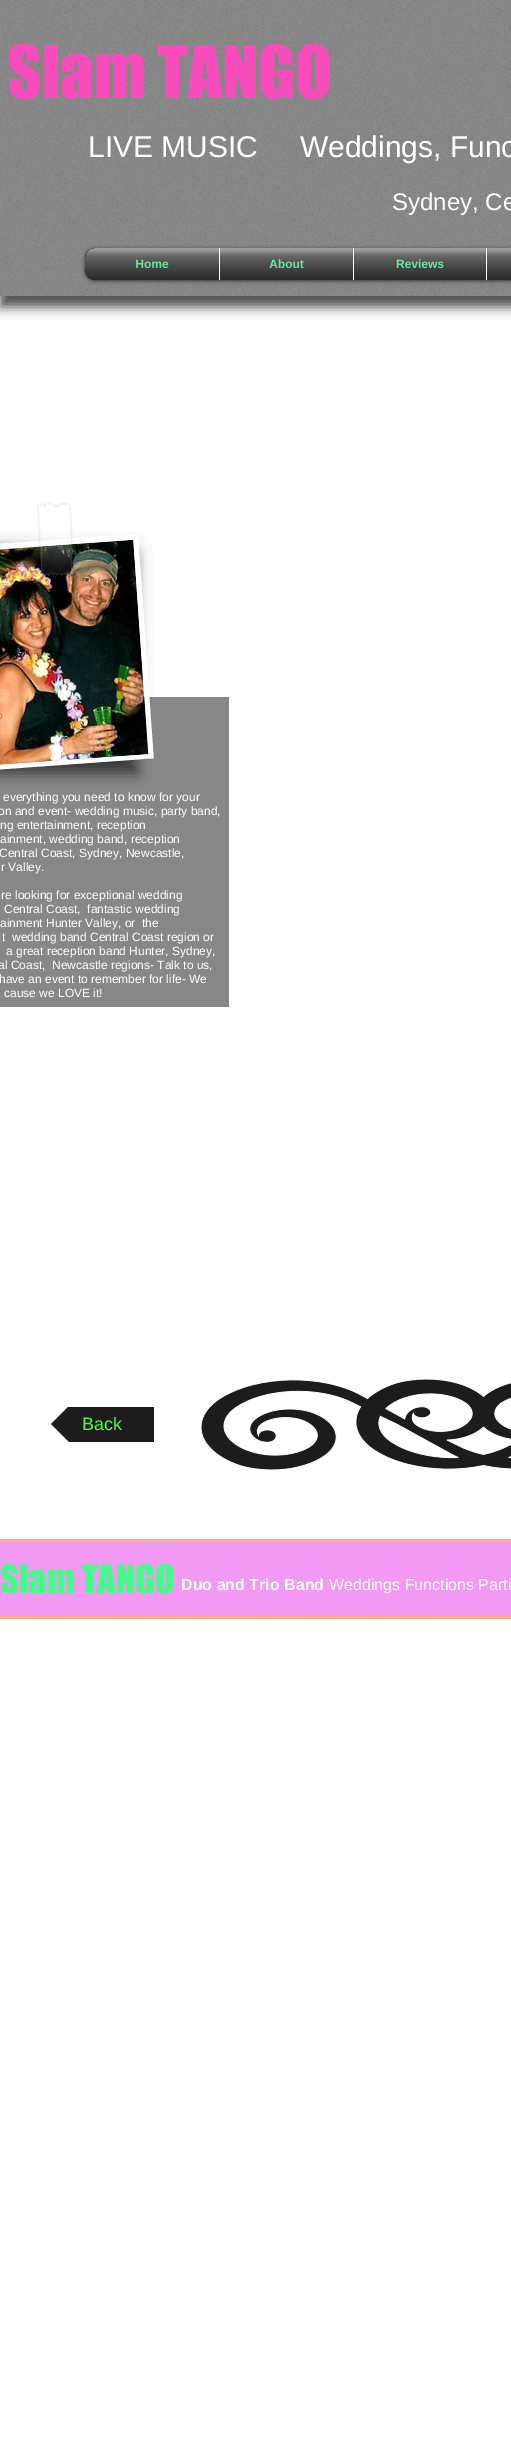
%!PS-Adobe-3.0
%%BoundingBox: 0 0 511 2437
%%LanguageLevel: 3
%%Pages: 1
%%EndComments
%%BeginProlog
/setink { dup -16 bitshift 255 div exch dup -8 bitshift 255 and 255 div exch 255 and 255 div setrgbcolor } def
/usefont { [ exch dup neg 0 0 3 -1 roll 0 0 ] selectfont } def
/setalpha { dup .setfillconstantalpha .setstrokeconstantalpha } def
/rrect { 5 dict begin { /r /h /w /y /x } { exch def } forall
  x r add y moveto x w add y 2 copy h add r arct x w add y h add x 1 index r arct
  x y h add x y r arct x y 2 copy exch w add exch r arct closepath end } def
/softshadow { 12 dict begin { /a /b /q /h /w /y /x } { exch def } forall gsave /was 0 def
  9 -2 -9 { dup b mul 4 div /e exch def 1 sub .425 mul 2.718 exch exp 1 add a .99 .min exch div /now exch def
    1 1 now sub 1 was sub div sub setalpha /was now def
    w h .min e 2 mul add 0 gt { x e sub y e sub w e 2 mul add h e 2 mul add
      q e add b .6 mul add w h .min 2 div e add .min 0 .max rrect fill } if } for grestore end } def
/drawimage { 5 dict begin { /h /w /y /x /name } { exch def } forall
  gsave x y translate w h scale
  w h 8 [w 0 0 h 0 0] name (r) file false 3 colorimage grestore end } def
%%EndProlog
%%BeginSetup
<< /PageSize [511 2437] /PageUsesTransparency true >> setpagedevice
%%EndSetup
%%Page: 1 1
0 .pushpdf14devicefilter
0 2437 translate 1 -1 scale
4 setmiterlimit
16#FFFFFF setink
0 0 511 2437 rectfill
16#000000 setink
0 11 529 296 0 6 0.7 softshadow
16#898989 setink
0 0 511 296 rectfill
(img1.raw) 0 0 511 296 drawimage
/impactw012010-Regular 67 usefont
16#F94CBC setink
7 98 moveto (Slam TANGO) show
/LiberationSans-Regular 30 usefont
16#FFFFFF setink
88 157 moveto (LIVE MUSIC     Weddings, Func) show
/LiberationSans-Regular 24 usefont
392 210 moveto (Sydney, Ce) show
16#000000 setink
85 249 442 32 10 2 0.6 softshadow
(img2.raw) 85 248 10 32 drawimage
(img3.raw) 85 253 10 27 drawimage
16#1C1C1C setink
95 248 moveto 219 248 lineto 219 280 lineto 95 280 lineto 89.5 280 85 275.5 85 270 curveto 85 258 lineto 85 252.5 89.5 248 95 248 curveto closepath fill
/LiberationSans-Bold 12 usefont
16#46FB89 setink
135 268 moveto (Home) show
(img4.raw) 85 248 134 32 drawimage
(img5.raw) 85 248 134 32 drawimage
16#1C1C1C setink
220 248 133 32 rectfill
16#FFFFFF setink
219 248 1 32 rectfill
16#46FB89 setink
269 268 moveto (About) show
(img6.raw) 220 248 133 32 drawimage
(img7.raw) 220 248 133 32 drawimage
16#1C1C1C setink
354 248 132 32 rectfill
16#FFFFFF setink
353 248 1 32 rectfill
16#46FB89 setink
396 268 moveto (Reviews) show
(img8.raw) 354 248 132 32 drawimage
(img9.raw) 354 248 132 32 drawimage
16#1C1C1C setink
487 248 24 32 rectfill
16#FFFFFF setink
486 248 1 32 rectfill
(img10.raw) 487 248 24 32 drawimage
(img11.raw) 487 248 24 32 drawimage
16#878787 setink
0 697 229 310 rectfill
16#000000 setink
-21 548 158 225 0 7 0.6 softshadow
16#FFFFFF setink
5 setlinewidth
-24 548 moveto 135.5 536.5 lineto 151 756 lineto -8.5 767.5 lineto closepath stroke
(img13.raw) 0 539 149 226 drawimage
(img12.raw) 37 502 37 75 drawimage
/LiberationSans-Regular 12 usefont
[
    [(everything you need to know for your) 3 801]
    [(on and event- wedding music, party band,) -2 815]
    [(ng entertainment, reception) 0 829]
    [(ainment, wedding band, reception) 0 843]
    [(Central Coast, Sydney, Newcastle,) -1 857]
    [(r Valley.) 1 871]
    [(re looking for exceptional wedding) 1 899]
    [(Central Coast,  fantastic wedding) 4 913]
    [(ainment Hunter Valley, or  the) 0 927]
    [(t  wedding band Central Coast region or) 2 941]
    [(a great reception band Hunter, Sydney,) 6 955]
    [(al Coast,  Newcastle regions- Talk to us,) -2 969]
    [(have an event to remember for life- We) -1 983]
    [(cause we LOVE it!) 4 997]
] { aload pop moveto show } forall
gsave
51 1407 103 35 rectclip
16#1C1C1C setink
101 1424 moveto 51 1424 lineto 101 1374 lineto closepath 51 1424 moveto 101 1424 lineto 101 1474 lineto closepath fill
grestore
16#1C1C1C setink
101 1407 53 35 rectfill
/LiberationSans-Regular 18 usefont
16#4EFF39 setink
82 1430 moveto (Back) show
(img14.raw) 201 1379 310 91 drawimage
[
    [0 1539 511 3 16#F8AC8D]
    [0 1615 511 4 16#F8AC8D]
    [0 1542 511 73 16#F199F3]
] { aload pop setink rectfill } forall
/impactw012010-Regular 36 usefont
16#46FB89 setink
0 1593 moveto (Slam TANGO) show
/LiberationSans-Bold 16 usefont
16#FFFFFF setink
181 1590 moveto (Duo and Trio Band) show
/LiberationSans-Regular 16 usefont
329 1590 moveto (Weddings Functions Parti) show
.poppdf14devicefilter showpage
%%EOF
